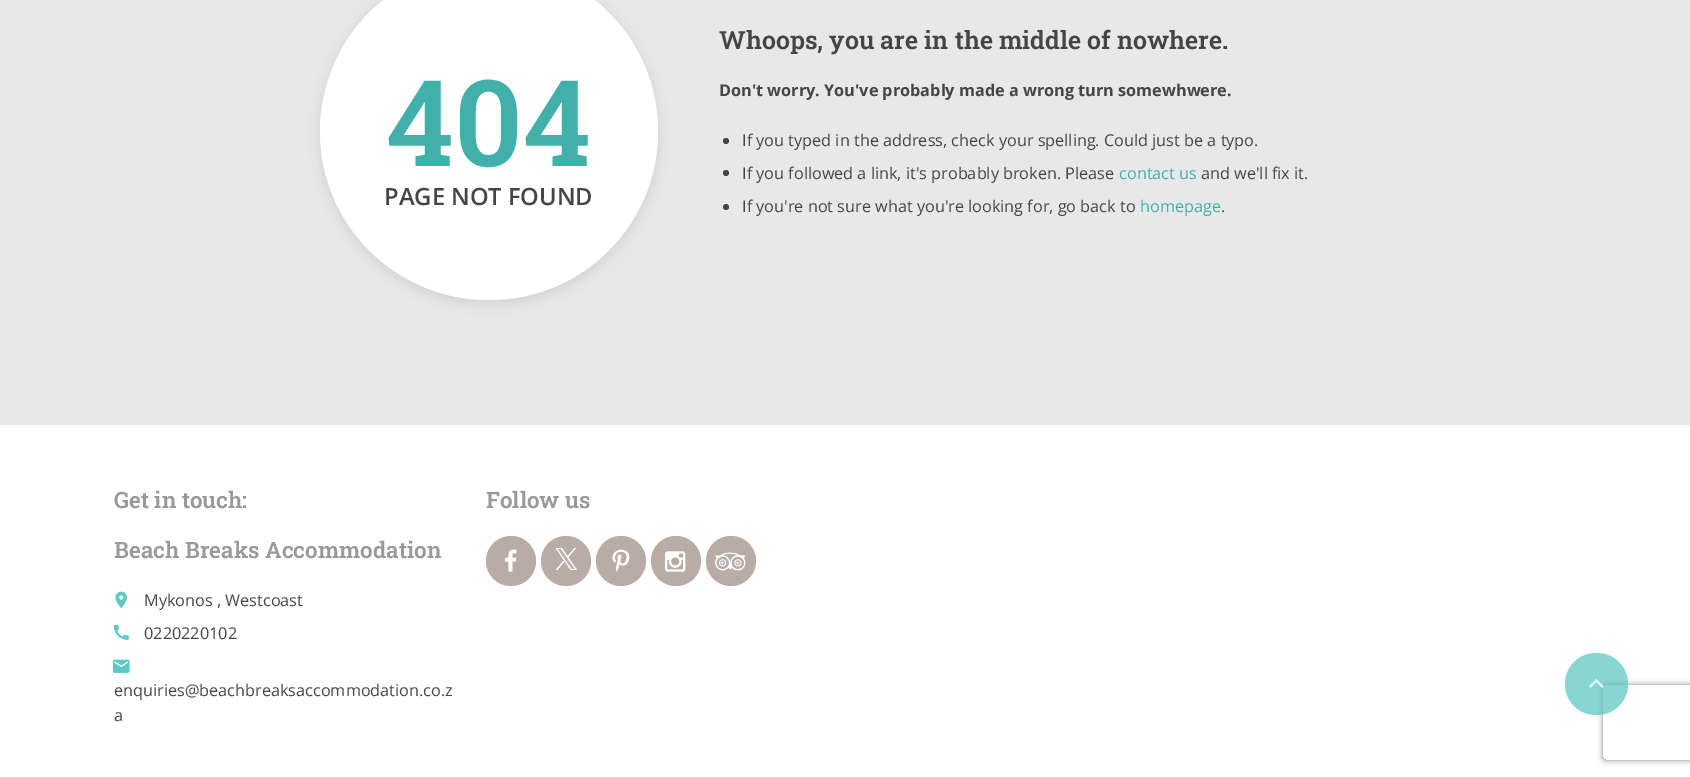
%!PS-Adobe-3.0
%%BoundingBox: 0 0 1690 777
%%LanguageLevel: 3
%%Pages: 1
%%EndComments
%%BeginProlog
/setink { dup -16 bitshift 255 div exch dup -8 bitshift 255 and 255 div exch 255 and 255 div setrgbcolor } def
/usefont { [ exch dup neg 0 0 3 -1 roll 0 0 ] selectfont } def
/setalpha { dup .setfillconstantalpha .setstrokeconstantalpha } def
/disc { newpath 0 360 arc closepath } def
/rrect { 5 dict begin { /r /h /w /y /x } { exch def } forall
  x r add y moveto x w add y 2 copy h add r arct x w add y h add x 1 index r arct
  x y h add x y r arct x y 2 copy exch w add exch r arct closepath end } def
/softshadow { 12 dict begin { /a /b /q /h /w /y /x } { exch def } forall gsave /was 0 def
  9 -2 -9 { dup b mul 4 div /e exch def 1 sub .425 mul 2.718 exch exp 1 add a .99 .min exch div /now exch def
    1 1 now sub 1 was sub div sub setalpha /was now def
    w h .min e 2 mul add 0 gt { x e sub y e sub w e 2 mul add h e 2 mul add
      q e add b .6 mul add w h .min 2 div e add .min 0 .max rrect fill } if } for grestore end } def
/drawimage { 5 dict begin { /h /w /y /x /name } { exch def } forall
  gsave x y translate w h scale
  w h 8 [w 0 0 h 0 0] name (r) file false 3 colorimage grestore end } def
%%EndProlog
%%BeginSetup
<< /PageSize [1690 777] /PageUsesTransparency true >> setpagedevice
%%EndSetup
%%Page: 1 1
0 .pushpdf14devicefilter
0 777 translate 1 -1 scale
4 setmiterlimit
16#E8E8E8 setink
0 0 1690 777 rectfill
16#000000 setink
320 -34 338 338 169 6 0.1 softshadow
16#FFFFFF setink
320 -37 338 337 168.5 rrect fill
/RobotoSlab-SemiBold 120 usefont
16#41AFAA setink
386 166 moveto (404) show
/OpenSans-SemiBold 23.75 usefont
16#454545 setink
384 205 moveto (PAGE NOT FOUND) show
/RobotoSlab-SemiBold 25 usefont
719 49 moveto (Whoops, you are in the middle of nowhere.) show
/OpenSans-Bold 16.25 usefont
719 96 moveto (Don't worry. You've probably made a wrong turn somewhwere.) show
726 141 3 disc fill
/OpenSans-Regular 16.25 usefont
742 146 moveto (If you typed in the address, check your spelling. Could just be a typo.) show
726 173 3 disc fill
742 179 moveto (If you followed a link, it's probably broken. Please) show
16#41AFAA setink
1119 179 moveto (contact us) show
16#454545 setink
1201 179 moveto (and we'll fix it.) show
726 207 3 disc fill
742 212 moveto (If you're not sure what you're looking for, go back to) show
16#41AFAA setink
1140 212 moveto (homepage) show
16#454545 setink
1221 212 moveto (.) show
16#FFFFFF setink
0 425 1690 352 rectfill
gsave
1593 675 moveto 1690 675 lineto 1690 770 lineto 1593 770 lineto closepath 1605.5 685 moveto 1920.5 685 lineto 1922 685 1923 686 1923 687.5 curveto 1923 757.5 lineto 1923 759 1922 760 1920.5 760 curveto 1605.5 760 lineto 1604 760 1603 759 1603 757.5 curveto 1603 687.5 lineto 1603 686 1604 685 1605.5 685 curveto closepath eoclip newpath
16#808080 setink
1603 685 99 75 2.5 3 1 softshadow
grestore
0.75 setalpha
16#5FC8C2 setink
1565 653 63 62 31 rrect fill
1 setalpha
(img1.raw) 1588 678 16 10 drawimage
/RobotoSlab-SemiBold 22.5 usefont
16#999999 setink
114 508 moveto (Get in touch:) show
114 558 moveto (Beach Breaks Accommodation) show
(img2.raw) 115 591 13 18 drawimage
/OpenSans-Regular 16.25 usefont
16#454545 setink
144 606 moveto (Mykonos , Westcoast) show
(img3.raw) 113 625 16 15 drawimage
144 639 moveto (0220220102) show
(img4.raw) 112 659 18 14 drawimage
114 696 moveto (enquiries@beachbreaksaccommodation.co.z) show
114 721 moveto (a) show
/RobotoSlab-SemiBold 22.5 usefont
16#999999 setink
486 508 moveto (Follow us) show
16#B9ACA4 setink
511 561 25 disc fill
(img5.raw) 505 549 12 23 drawimage
566 561 25 disc fill
(img6.raw) 555 548 22 22 drawimage
621 561 25 disc fill
(img7.raw) 612 549 18 23 drawimage
676 561 25 disc fill
(img8.raw) 665 551 21 21 drawimage
731 561 25 disc fill
(img9.raw) 715 552 31 19 drawimage
.poppdf14devicefilter showpage
%%EOF
